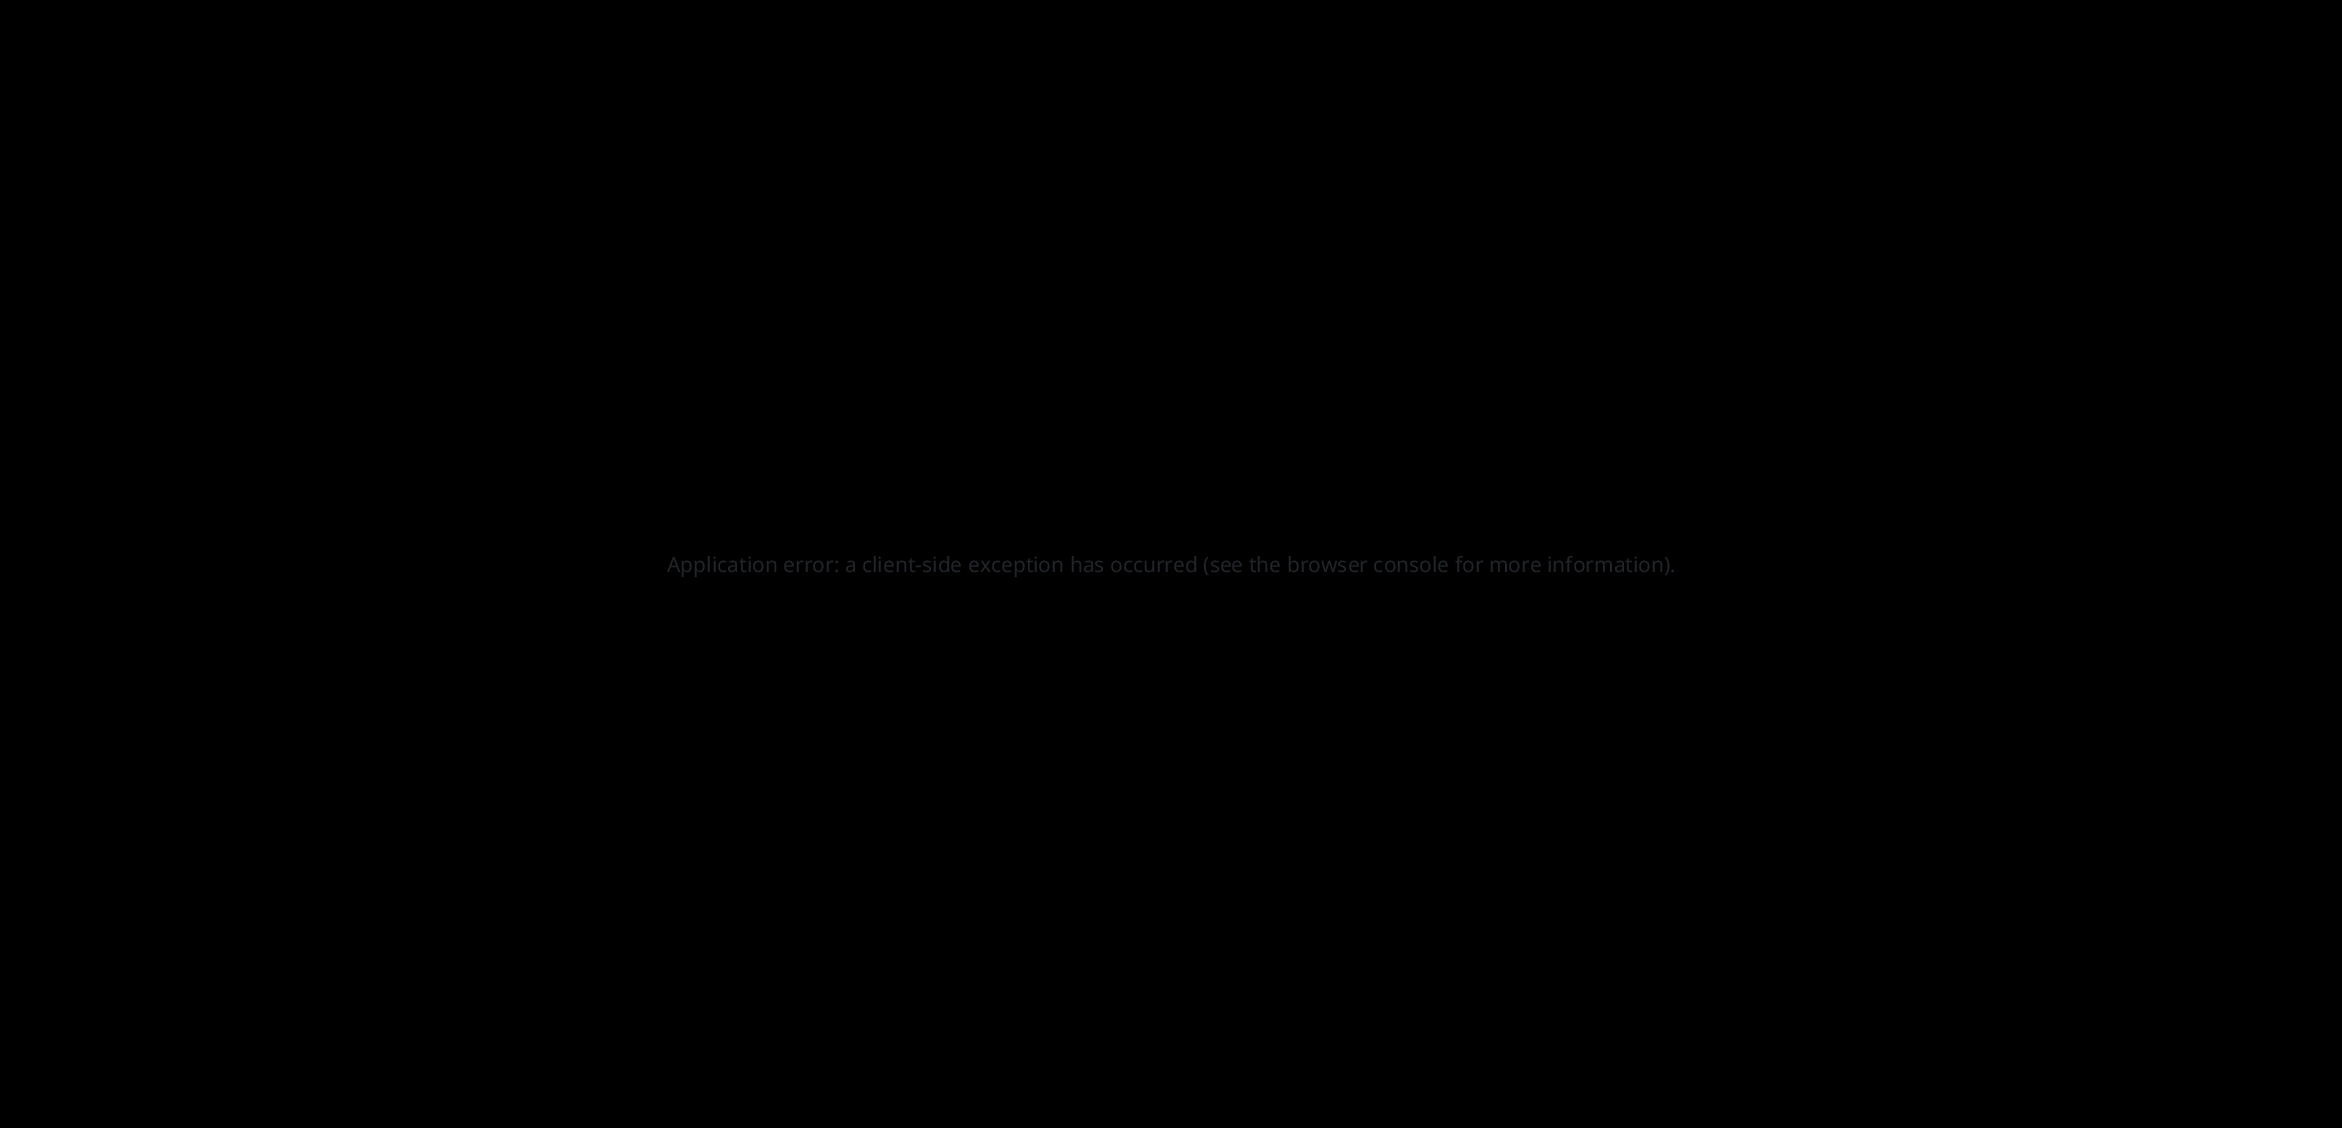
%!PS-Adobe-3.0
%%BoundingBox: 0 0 2342 1128
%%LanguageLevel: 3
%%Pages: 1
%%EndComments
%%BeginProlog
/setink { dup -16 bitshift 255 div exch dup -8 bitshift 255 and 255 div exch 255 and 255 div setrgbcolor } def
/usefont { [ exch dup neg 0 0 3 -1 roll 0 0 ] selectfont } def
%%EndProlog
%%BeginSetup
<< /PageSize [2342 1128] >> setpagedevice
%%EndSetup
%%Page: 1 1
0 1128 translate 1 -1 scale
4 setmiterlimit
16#000000 setink
0 0 2342 1128 rectfill
/NotoSans-Regular 21 usefont
16#212529 setink
667 572 moveto (Application error: a client-side exception has occurred \(see the browser console for more information\).) show
showpage
%%EOF
